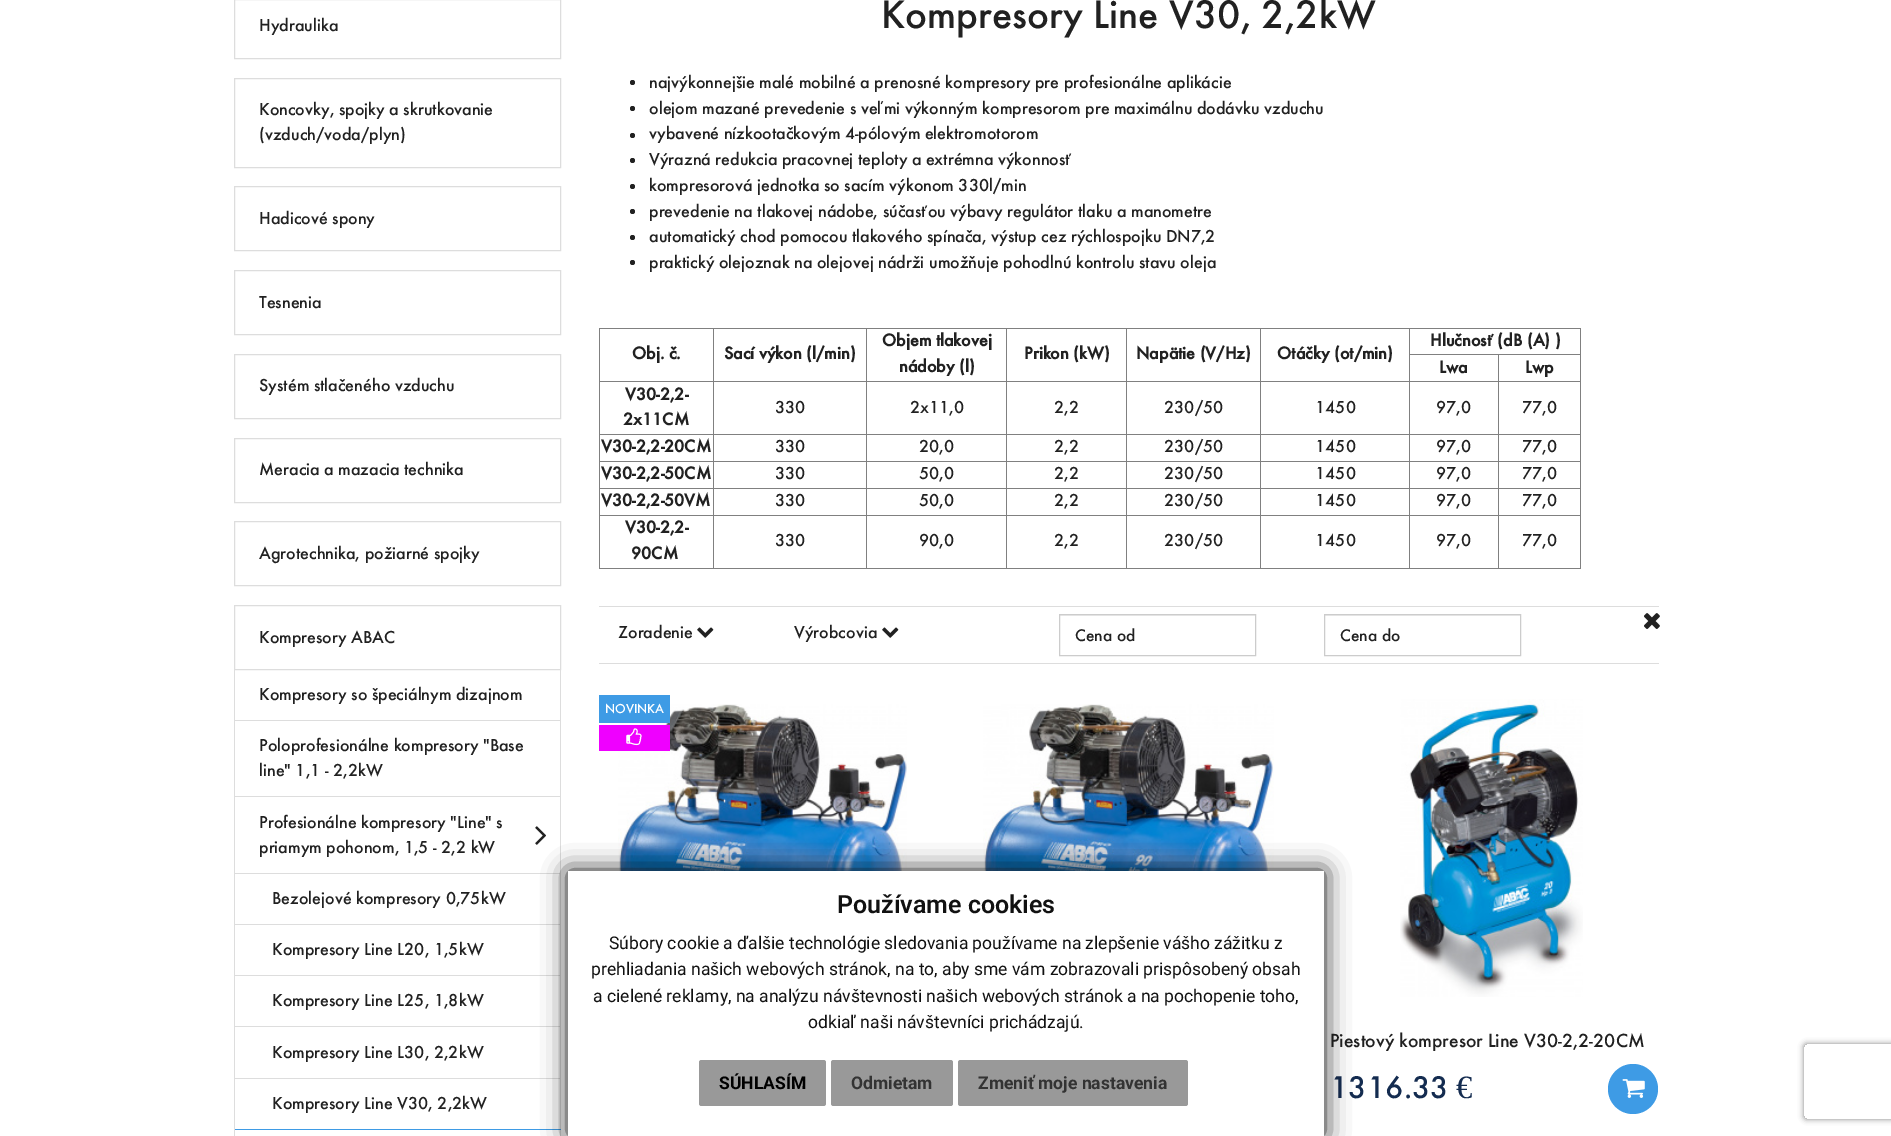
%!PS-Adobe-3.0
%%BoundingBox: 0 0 1891 1136
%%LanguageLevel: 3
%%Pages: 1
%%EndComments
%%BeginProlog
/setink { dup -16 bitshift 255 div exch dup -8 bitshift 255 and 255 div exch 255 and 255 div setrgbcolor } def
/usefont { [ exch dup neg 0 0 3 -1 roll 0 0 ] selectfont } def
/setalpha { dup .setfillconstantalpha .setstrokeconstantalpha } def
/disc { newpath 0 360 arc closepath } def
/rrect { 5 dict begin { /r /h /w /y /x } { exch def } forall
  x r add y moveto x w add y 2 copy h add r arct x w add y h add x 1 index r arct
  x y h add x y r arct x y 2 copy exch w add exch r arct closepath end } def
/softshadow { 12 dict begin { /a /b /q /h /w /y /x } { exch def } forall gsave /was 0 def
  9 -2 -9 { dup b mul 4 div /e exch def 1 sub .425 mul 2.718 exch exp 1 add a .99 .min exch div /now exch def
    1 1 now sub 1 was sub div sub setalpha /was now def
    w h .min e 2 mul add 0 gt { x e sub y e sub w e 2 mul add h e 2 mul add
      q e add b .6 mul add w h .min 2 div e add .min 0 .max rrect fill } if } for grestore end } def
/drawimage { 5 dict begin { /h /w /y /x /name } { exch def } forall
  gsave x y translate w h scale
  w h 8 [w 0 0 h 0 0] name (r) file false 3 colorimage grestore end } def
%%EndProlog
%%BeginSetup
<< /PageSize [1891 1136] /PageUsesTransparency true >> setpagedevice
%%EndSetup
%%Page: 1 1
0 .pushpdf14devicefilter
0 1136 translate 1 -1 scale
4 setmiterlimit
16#FFFFFF setink
0 0 1891 1136 rectfill
16#DDDDDD setink
234.5 -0.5 326 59 rectstroke
/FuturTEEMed-Medium 18 usefont
16#212121 setink
259 31 moveto (Hydraulika) show
16#DDDDDD setink
234.5 78.5 326 89 rectstroke
16#212121 setink
259 115 moveto (Koncovky, spojky a skrutkovanie) show
259 140 moveto (\(vzduch/voda/plyn\)) show
16#DDDDDD setink
234.5 186.5 326 64 rectstroke
16#212121 setink
259 224 moveto (Hadicové spony) show
16#DDDDDD setink
234.5 270.5 326 64 rectstroke
16#212121 setink
259 308 moveto (Tesnenia) show
16#DDDDDD setink
234.5 354.5 326 64 rectstroke
16#212121 setink
259 391 moveto (Systém stlačeného vzduchu) show
16#DDDDDD setink
234.5 438.5 326 64 rectstroke
16#212121 setink
259 475 moveto (Meracia a mazacia technika) show
16#DDDDDD setink
234.5 521.5 326 64 rectstroke
16#212121 setink
259 559 moveto (Agrotechnika, požiarné spojky) show
16#DDDDDD setink
234.5 605.5 326 64 rectstroke
16#212121 setink
259 643 moveto (Kompresory ABAC) show
[
    [560 670 1 466 16#DDDDDD]
    [234 720 327 1 16#DDDDDD]
    [234 670 1 51 16#DDDDDD]
] { aload pop setink rectfill } forall
16#212121 setink
259 700 moveto (Kompresory so špeciálnym dizajnom) show
16#DDDDDD setink
234 796 327 1 rectfill
234 721 1 77 rectfill
16#212121 setink
259 751 moveto (Poloprofesionálne kompresory "Base) show
259 776 moveto (line" 1,1 - 2,2kW) show
16#DDDDDD setink
234 873 327 1 rectfill
234 798 1 76 rectfill
16#212121 setink
259 828 moveto (Profesionálne kompresory "Line" s) show
(img1.raw) 535 826 11 19 drawimage
259 853 moveto (priamym pohonom, 1,5 - 2,2 kW) show
16#DDDDDD setink
234 924 327 1 rectfill
234 874 1 51 rectfill
16#212121 setink
272 904 moveto (Bezolejové kompresory 0,75kW) show
16#DDDDDD setink
234 975 327 1 rectfill
234 925 1 51 rectfill
16#212121 setink
272 955 moveto (Kompresory Line L20, 1,5kW) show
16#DDDDDD setink
234 1026 327 1 rectfill
234 976 1 52 rectfill
16#212121 setink
272 1006 moveto (Kompresory Line L25, 1,8kW) show
16#DDDDDD setink
234 1078 327 1 rectfill
234 1028 1 51 rectfill
16#212121 setink
272 1058 moveto (Kompresory Line L30, 2,2kW) show
16#3E9BE5 setink
234 1129 327 1 rectfill
16#DDDDDD setink
234 1079 1 57 rectfill
16#212121 setink
272 1109 moveto (Kompresory Line V30, 2,2kW) show
/FuturTEEMed-Medium 41.4 usefont
881 28 moveto (Kompresory Line V30, 2,2kW) show
632.5 82.5 2.5 disc fill
/FuturTEEMed-Medium 18 usefont
649 88 moveto (najvýkonnejšie malé mobilné a prenosné kompresory pre profesionálne aplikácie) show
632.5 108.5 2.5 disc fill
649 114 moveto (olejom mazané prevedenie s veľmi výkonným kompresorom pre maximálnu dodávku vzduchu) show
632.5 135.5 2.5 disc fill
649 139 moveto (vybavené nízkootačkovým 4-pólovým elektromotorom) show
632.5 160.5 2.5 disc fill
649 165 moveto (Výrazná redukcia pracovnej teploty a extrémna výkonnosť) show
632.5 186.5 2.5 disc fill
649 191 moveto (kompresorová jednotka so sacím výkonom 330l/min) show
632.5 211.5 2.5 disc fill
649 217 moveto (prevedenie na tlakovej nádobe, súčasťou výbavy regulátor tlaku a manometre) show
632.5 237.5 2.5 disc fill
649 242 moveto (automatický chod pomocou tlakového spínača, výstup cez rýchlospojku DN7,2) show
632.5 262.5 2.5 disc fill
649 268 moveto (praktický olejoznak na olejovej nádrži umožňuje pohodlnú kontrolu stavu oleja) show
[
    [599 328 982 1 16#808080]
    [1580 328 1 241 16#808080]
    [599 568 982 1 16#808080]
    [599 328 1 241 16#808080]
    [1498 381 83 1 16#808080]
    [1498 434 83 1 16#808080]
    [1498 461 83 1 16#808080]
    [1498 488 83 1 16#808080]
    [1498 515 83 1 16#808080]
    [1498 515 1 54 16#808080]
    [1409 515 90 1 16#808080]
    [1498 488 1 28 16#808080]
    [1409 488 90 1 16#808080]
    [1498 461 1 28 16#808080]
    [1409 461 90 1 16#808080]
    [1498 434 1 29 16#808080]
    [1409 434 90 1 16#808080]
    [1498 381 1 54 16#808080]
    [1409 381 90 1 16#808080]
    [1409 515 1 54 16#808080]
    [1260 515 150 1 16#808080]
    [1409 488 1 28 16#808080]
    [1260 488 150 1 16#808080]
    [1409 461 1 28 16#808080]
    [1260 461 150 1 16#808080]
    [1409 434 1 29 16#808080]
    [1260 434 150 1 16#808080]
    [1409 381 1 54 16#808080]
    [1260 381 150 1 16#808080]
    [1260 515 1 54 16#808080]
    [1126 515 135 1 16#808080]
    [1260 488 1 28 16#808080]
    [1126 488 135 1 16#808080]
    [1260 461 1 28 16#808080]
    [1126 461 135 1 16#808080]
    [1260 434 1 29 16#808080]
    [1126 434 135 1 16#808080]
    [1260 381 1 54 16#808080]
    [1126 381 135 1 16#808080]
    [1126 515 1 54 16#808080]
    [1006 515 122 1 16#808080]
    [1126 488 1 28 16#808080]
    [1006 488 122 1 16#808080]
    [1126 461 1 28 16#808080]
    [1006 461 122 1 16#808080]
    [1126 434 1 29 16#808080]
    [1006 434 122 1 16#808080]
    [1126 381 1 54 16#808080]
    [1006 381 122 1 16#808080]
    [1006 515 1 54 16#808080]
    [866 515 142 1 16#808080]
    [1006 488 1 28 16#808080]
    [866 488 142 1 16#808080]
    [1006 461 1 28 16#808080]
    [866 461 142 1 16#808080]
    [1006 434 1 29 16#808080]
    [866 434 142 1 16#808080]
    [1006 381 1 54 16#808080]
    [866 381 142 1 16#808080]
    [866 515 1 54 16#808080]
    [713 515 155 1 16#808080]
    [866 488 1 28 16#808080]
    [713 488 155 1 16#808080]
    [866 461 1 28 16#808080]
    [713 461 155 1 16#808080]
    [866 434 1 29 16#808080]
    [713 434 155 1 16#808080]
    [866 381 1 54 16#808080]
    [713 381 155 1 16#808080]
    [866 328 1 55 16#808080]
] { aload pop setink rectfill } forall
/FuturTEEMed-Bold 18 usefont
16#212121 setink
[
    [(Objem tlakovej) 882 346]
    [(nádoby \(l\)) 899 372]
    [(Hlučnosť \(dB \(A\) \)) 1430 346]
    [(Obj. č.) 632 359]
] { aload pop moveto show } forall
[
    [713 515 1 54 16#808080]
    [599 515 115 1 16#808080]
    [713 488 1 28 16#808080]
    [599 488 115 1 16#808080]
    [713 461 1 28 16#808080]
    [599 461 115 1 16#808080]
    [713 434 1 29 16#808080]
    [599 434 115 1 16#808080]
    [713 381 1 54 16#808080]
    [599 381 115 1 16#808080]
    [713 328 1 55 16#808080]
] { aload pop setink rectfill } forall
16#212121 setink
724 359 moveto (Sací výkon \(l/min\)) show
16#808080 setink
1006 328 1 55 rectfill
16#212121 setink
1024 359 moveto (Prikon \(kW\)) show
16#808080 setink
1126 328 1 55 rectfill
16#212121 setink
1136 359 moveto (Napätie \(V/Hz\)) show
16#808080 setink
1260 328 1 55 rectfill
16#212121 setink
1277 359 moveto (Otáčky \(ot/min\)) show
[
    [1498 354 83 1 16#808080]
    [1498 354 1 29 16#808080]
    [1409 354 90 1 16#808080]
    [1409 328 1 55 16#808080]
] { aload pop setink rectfill } forall
16#212121 setink
[
    [(Lwa) 1439 373]
    [(Lwp) 1525 373]
    [(V30-2,2-) 625 400]
    [(2x11CM) 623 425]
] { aload pop moveto show } forall
/FuturTEEMed-Medium 18 usefont
[
    [(330) 775 413]
    [(2x11,0) 910 413]
    [(2,2) 1054 413]
    [(230/50) 1164 413]
    [(1450) 1315 413]
    [(97,0) 1436 413]
    [(77,0) 1522 413]
] { aload pop moveto show } forall
/FuturTEEMed-Bold 18 usefont
601 452 moveto (V30-2,2-20CM) show
/FuturTEEMed-Medium 18 usefont
[
    [(330) 775 452]
    [(20,0) 919 452]
    [(2,2) 1054 452]
    [(230/50) 1164 452]
    [(1450) 1315 452]
    [(97,0) 1436 452]
    [(77,0) 1522 452]
] { aload pop moveto show } forall
/FuturTEEMed-Bold 18 usefont
601 479 moveto (V30-2,2-50CM) show
/FuturTEEMed-Medium 18 usefont
[
    [(330) 775 479]
    [(50,0) 919 479]
    [(2,2) 1054 479]
    [(230/50) 1164 479]
    [(1450) 1315 479]
    [(97,0) 1436 479]
    [(77,0) 1522 479]
] { aload pop moveto show } forall
/FuturTEEMed-Bold 18 usefont
601 506 moveto (V30-2,2-50VM) show
/FuturTEEMed-Medium 18 usefont
[
    [(330) 775 506]
    [(50,0) 919 506]
    [(2,2) 1054 506]
    [(230/50) 1164 506]
    [(1450) 1315 506]
    [(97,0) 1436 506]
    [(77,0) 1522 506]
] { aload pop moveto show } forall
/FuturTEEMed-Bold 18 usefont
625 533 moveto (V30-2,2-) show
631 559 moveto (90CM) show
/FuturTEEMed-Medium 18 usefont
[
    [(330) 775 546]
    [(90,0) 919 546]
    [(2,2) 1054 546]
    [(230/50) 1164 546]
    [(1450) 1315 546]
    [(97,0) 1436 546]
    [(77,0) 1522 546]
] { aload pop moveto show } forall
16#DDDDDD setink
599 606 1060 1 rectfill
599 663 1060 1 rectfill
(img2.raw) 1644 613 16 16 drawimage
16#212121 setink
618 638 moveto (Zoradenie) show
(img3.raw) 697 627 17 11 drawimage
794 638 moveto (Výrobcovia) show
(img3.raw) 882 627 17 11 drawimage
16#ECECEC setink
1060 615 195 1 rectfill
16#CCCCCC setink
1059.5 614.5 196 41 rectstroke
/FuturTEEMed-Medium 17.5 usefont
16#212121 setink
1075 641 moveto (Cena od) show
16#ECECEC setink
1325 615 195 1 rectfill
16#CCCCCC setink
1324.5 614.5 196 41 rectstroke
16#212121 setink
1340 641 moveto (Cena do) show
(img5.raw) 618 704 289 167 drawimage
16#3E9BE5 setink
599 695 71 28 rectfill
/FuturTEEMed-Medium 13.5 usefont
16#FFFFFF setink
605 713 moveto (NOVINKA) show
16#EF00FF setink
599 725 71 26 rectfill
(img4.raw) 626 728 16 18 drawimage
(img6.raw) 983 704 291 167 drawimage
(img7.raw) 1400 699 183 298 drawimage
gsave
1330 1030 328 21 rectclip
/FuturTEEMed-Medium 19.75 usefont
16#212121 setink
1330 1047 moveto (Piestový kompresor Line V30-2,2-20CM) show
grestore
/FuturTEEMed-Medium 32.5 usefont
16#142C50 setink
1330 1098 moveto (1316.33) show
/LiberationSerif-Regular 32.5 usefont
1456 1098 moveto (€) show
16#3E9BE5 setink
1633 1089 25 disc fill
(img8.raw) 1622 1079 23 19 drawimage
16#111111 setink
568 871 756 265 0 12.5 1 softshadow
16#FFFFFF setink
568 871 756 265 rectfill
/Roboto-SemiBold 25 usefont
16#111111 setink
837 913 moveto (Používame cookies) show
/Roboto-Regular 17.5 usefont
[
    [(Súbory cookie a ďalšie technológie sledovania používame na zlepšenie vášho zážitku z) 609 949]
    [(prehliadania našich webových stránok, na to, aby sme vám zobrazovali prispôsobený obsah) 591 975]
    [(a cielené reklamy, na analýzu návštevnosti našich webových stránok a na pochopenie toho,) 593 1002]
    [(odkiaľ naši návštevníci prichádzajú.) 808 1028]
] { aload pop moveto show } forall
16#999999 setink
699 1060 127 46 2.5 rrect fill
/Roboto-Bold 17.5 usefont
16#000000 setink
719 1089 moveto (SÚHLASÍM) show
16#999999 setink
831 1060 122 46 2.5 rrect fill
16#333333 setink
851 1089 moveto (Odmietam) show
16#999999 setink
958 1060 230 46 2.5 rrect fill
16#333333 setink
978 1089 moveto (Zmeniť moje nastavenia) show
gsave
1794 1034 moveto 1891 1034 lineto 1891 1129 lineto 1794 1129 lineto closepath 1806.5 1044 moveto 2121.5 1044 lineto 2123 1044 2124 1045 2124 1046.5 curveto 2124 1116.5 lineto 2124 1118 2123 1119 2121.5 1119 curveto 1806.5 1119 lineto 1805 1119 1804 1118 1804 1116.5 curveto 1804 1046.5 lineto 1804 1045 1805 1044 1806.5 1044 curveto closepath eoclip newpath
16#808080 setink
1804 1044 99 75 2.5 3 1 softshadow
grestore
.poppdf14devicefilter showpage
%%EOF
